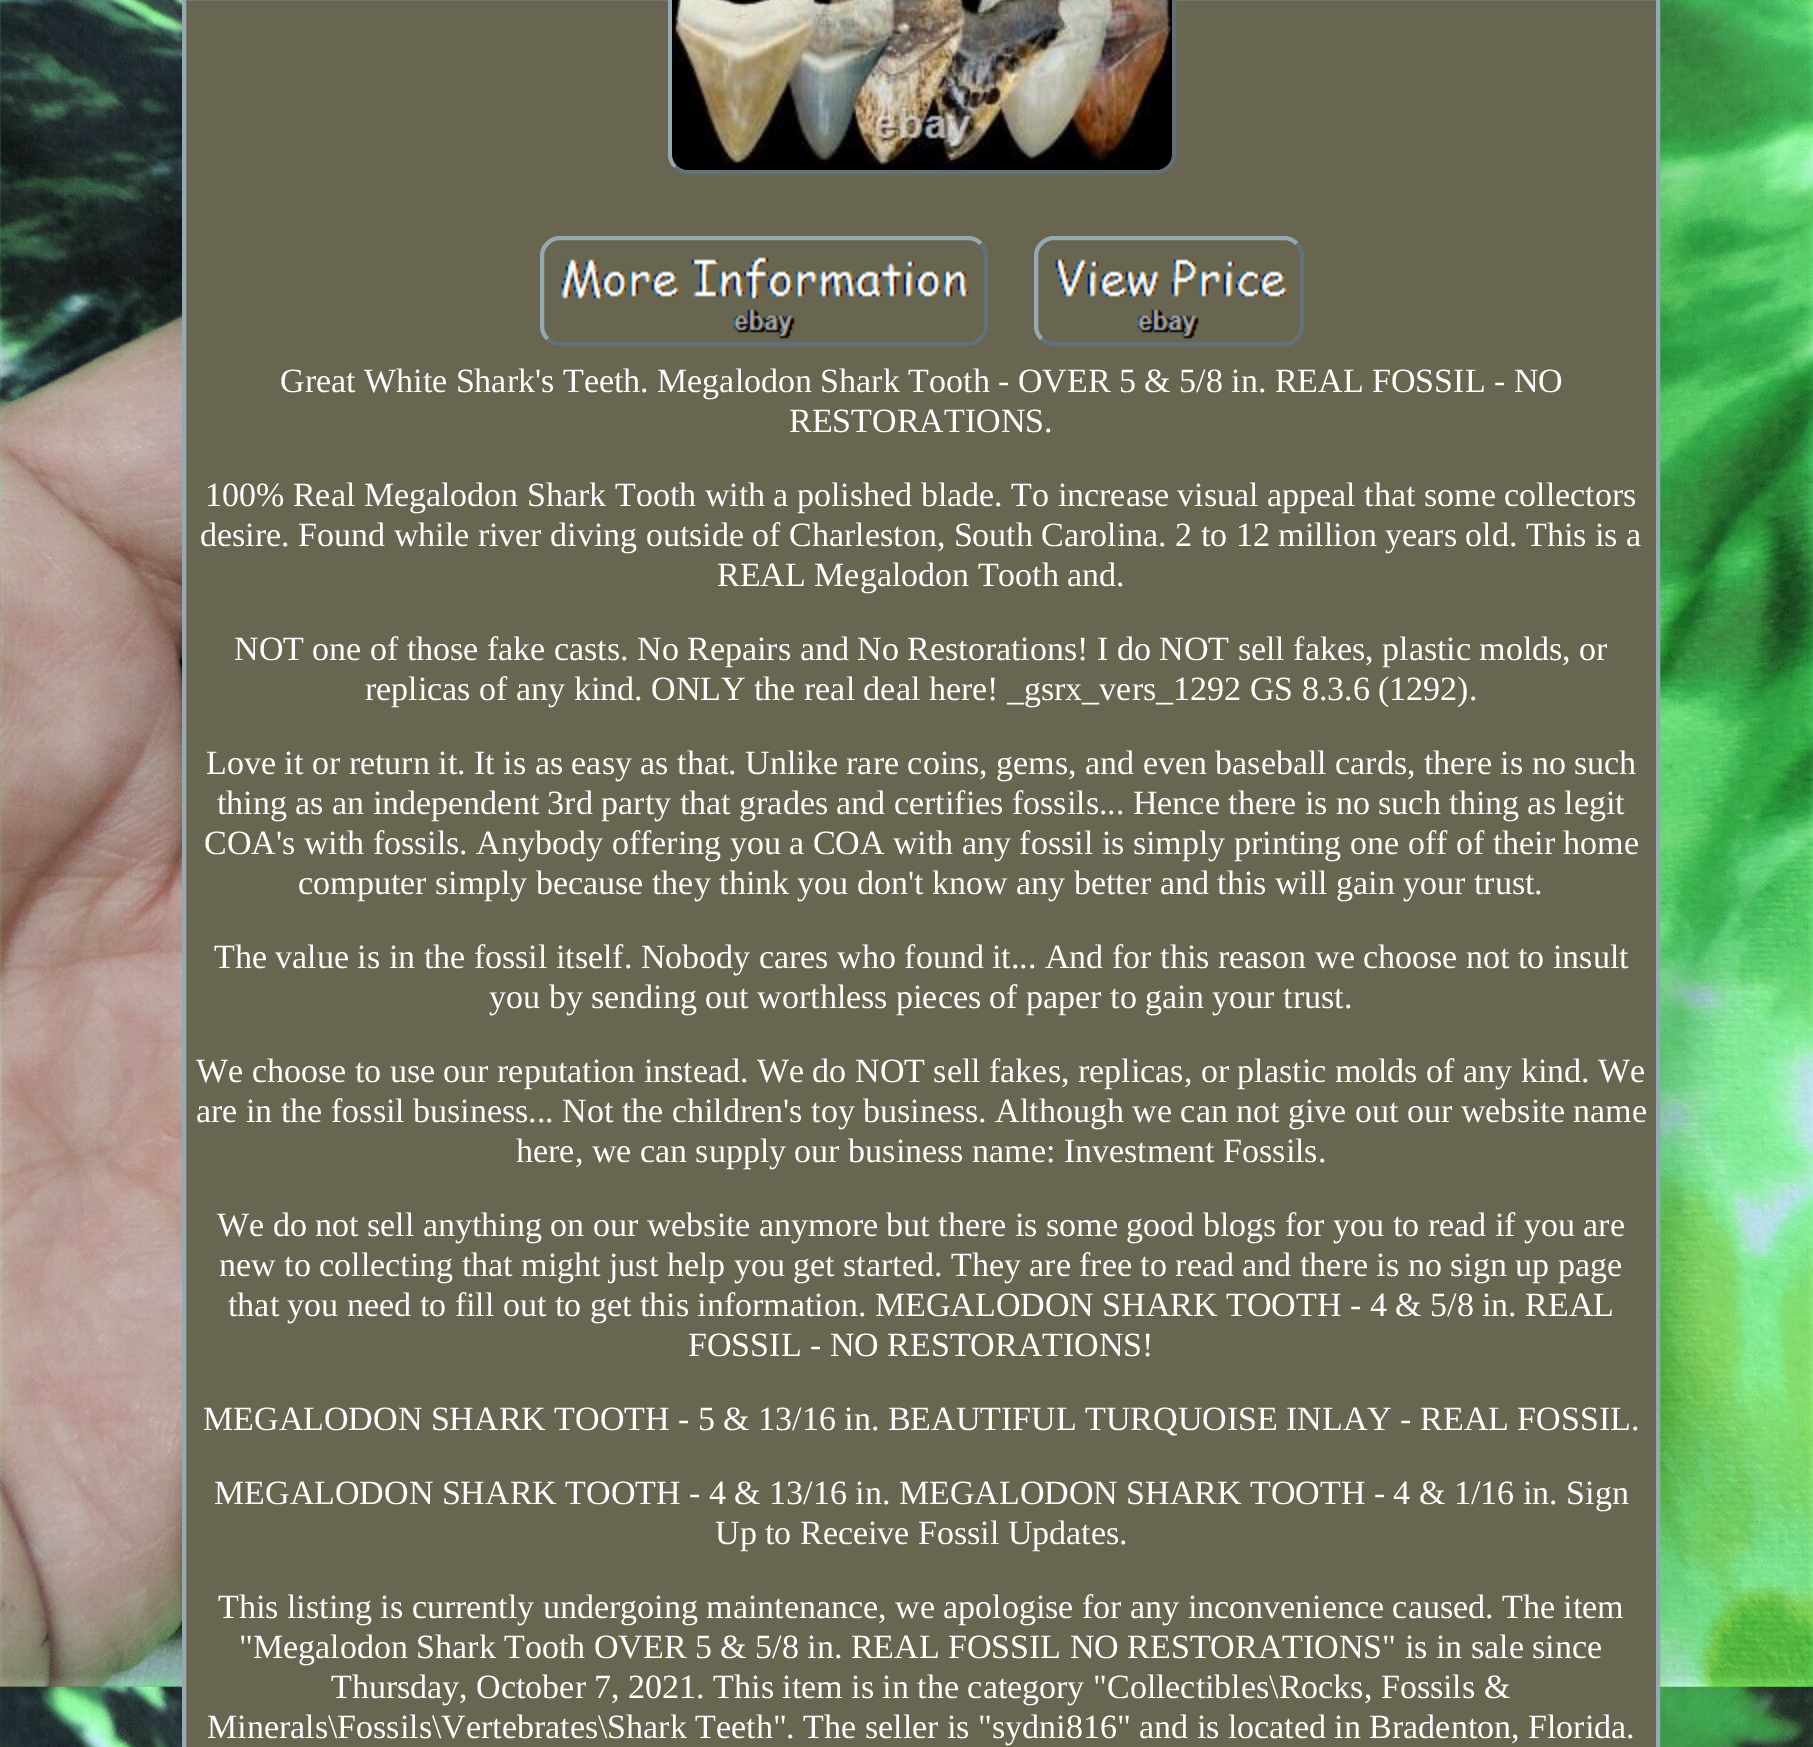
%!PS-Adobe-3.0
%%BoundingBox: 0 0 1813 1747
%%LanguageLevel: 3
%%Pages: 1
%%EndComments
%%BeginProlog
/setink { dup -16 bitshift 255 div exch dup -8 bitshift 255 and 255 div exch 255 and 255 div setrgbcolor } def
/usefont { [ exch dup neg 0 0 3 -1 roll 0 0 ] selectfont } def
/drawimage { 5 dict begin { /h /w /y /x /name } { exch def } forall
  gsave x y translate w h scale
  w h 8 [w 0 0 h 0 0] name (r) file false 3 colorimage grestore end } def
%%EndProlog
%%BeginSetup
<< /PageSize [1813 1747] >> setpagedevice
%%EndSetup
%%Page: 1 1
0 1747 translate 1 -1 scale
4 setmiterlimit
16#FFFFFF setink
0 0 1813 1747 rectfill
(img1.raw) 0 0 1813 1747 drawimage
16#686651 setink
184 -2 moveto 1658 -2 lineto 1658 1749 lineto 184 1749 lineto closepath gsave fill grestore
16#96A8B2 setink
4 setlinewidth
stroke
16#647077 setink
1168.5 -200.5 moveto 1172 -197.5 1174 -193 1174 -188 curveto 1174 154 lineto 1174 159 1172 163.5 1168.5 166.5 curveto 1165.5 170 1161 172 1156 172 curveto 688 172 lineto 683 172 678.5 170 675.5 166.5 curveto stroke
16#96A8B2 setink
675.5 166.5 moveto 672 163.5 670 159 670 154 curveto 670 -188 lineto 670 -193 672 -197.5 675.5 -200.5 curveto 678.5 -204 683 -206 688 -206 curveto 1156 -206 lineto 1161 -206 1165.5 -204 1168.5 -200.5 curveto stroke
(img2.raw) 672 0 500 170 drawimage
16#647077 setink
980.5 243.5 moveto 984 246.5 986 251 986 256 curveto 986 326 lineto 986 331 984 335.5 980.5 338.5 curveto 977.5 342 973 344 968 344 curveto 560 344 lineto 555 344 550.5 342 547.5 338.5 curveto stroke
16#96A8B2 setink
547.5 338.5 moveto 544 335.5 542 331 542 326 curveto 542 256 lineto 542 251 544 246.5 547.5 243.5 curveto 550.5 240 555 238 560 238 curveto 968 238 lineto 973 238 977.5 240 980.5 243.5 curveto stroke
16#647077 setink
1296.5 243.5 moveto 1300 246.5 1302 251 1302 256 curveto 1302 326 lineto 1302 331 1300 335.5 1296.5 338.5 curveto 1293.5 342 1289 344 1284 344 curveto 1054 344 lineto 1049 344 1044.5 342 1041.5 338.5 curveto stroke
16#96A8B2 setink
1041.5 338.5 moveto 1038 335.5 1036 331 1036 326 curveto 1036 256 lineto 1036 251 1038 246.5 1041.5 243.5 curveto 1044.5 240 1049 238 1054 238 curveto 1284 238 lineto 1289 238 1293.5 240 1296.5 243.5 curveto stroke
(img3.raw) 561 257 408 82 drawimage
(img4.raw) 1055 259 232 80 drawimage
/LiberationSerif-Regular 34 usefont
16#FFFFFF setink
[
    [(Great White Shark's Teeth. Megalodon Shark Tooth - OVER 5 & 5/8 in. REAL FOSSIL - NO) 280 392]
    [(RESTORATIONS.) 789 432]
    [(100% Real Megalodon Shark Tooth with a polished blade. To increase visual appeal that some collectors) 205 506]
    [(desire. Found while river diving outside of Charleston, South Carolina. 2 to 12 million years old. This is a) 200 546]
    [(REAL Megalodon Tooth and.) 717 586]
    [(NOT one of those fake casts. No Repairs and No Restorations! I do NOT sell fakes, plastic molds, or) 234 660]
    [(replicas of any kind. ONLY the real deal here! _gsrx_vers_1292 GS 8.3.6 \(1292\).) 365 700]
    [(Love it or return it. It is as easy as that. Unlike rare coins, gems, and even baseball cards, there is no such) 206 774]
    [(thing as an independent 3rd party that grades and certifies fossils... Hence there is no such thing as legit) 217 814]
    [(COA's with fossils. Anybody offering you a COA with any fossil is simply printing one off of their home) 204 854]
    [(computer simply because they think you don't know any better and this will gain your trust.) 298 894]
    [(The value is in the fossil itself. Nobody cares who found it... And for this reason we choose not to insult) 214 968]
    [(you by sending out worthless pieces of paper to gain your trust.) 489 1008]
    [(We choose to use our reputation instead. We do NOT sell fakes, replicas, or plastic molds of any kind. We) 196 1082]
    [(are in the fossil business... Not the children's toy business. Although we can not give out our website name) 196 1122]
    [(here, we can supply our business name: Investment Fossils.) 516 1162]
    [(We do not sell anything on our website anymore but there is some good blogs for you to read if you are) 217 1236]
    [(new to collecting that might just help you get started. They are free to read and there is no sign up page) 219 1276]
    [(that you need to fill out to get this information. MEGALODON SHARK TOOTH - 4 & 5/8 in. REAL) 228 1316]
    [(FOSSIL - NO RESTORATIONS!) 688 1356]
    [(MEGALODON SHARK TOOTH - 5 & 13/16 in. BEAUTIFUL TURQUOISE INLAY - REAL FOSSIL.) 203 1430]
    [(MEGALODON SHARK TOOTH - 4 & 13/16 in. MEGALODON SHARK TOOTH - 4 & 1/16 in. Sign) 214 1504]
    [(Up to Receive Fossil Updates.) 715 1544]
    [(This listing is currently undergoing maintenance, we apologise for any inconvenience caused. The item) 218 1618]
    [("Megalodon Shark Tooth OVER 5 & 5/8 in. REAL FOSSIL NO RESTORATIONS" is in sale since) 239 1658]
    [(Thursday, October 7, 2021. This item is in the category "Collectibles\\Rocks, Fossils &) 331 1698]
    [(Minerals\\Fossils\\Vertebrates\\Shark Teeth". The seller is "sydni816" and is located in Bradenton, Florida.) 207 1738]
] { aload pop moveto show } forall
showpage
%%EOF
